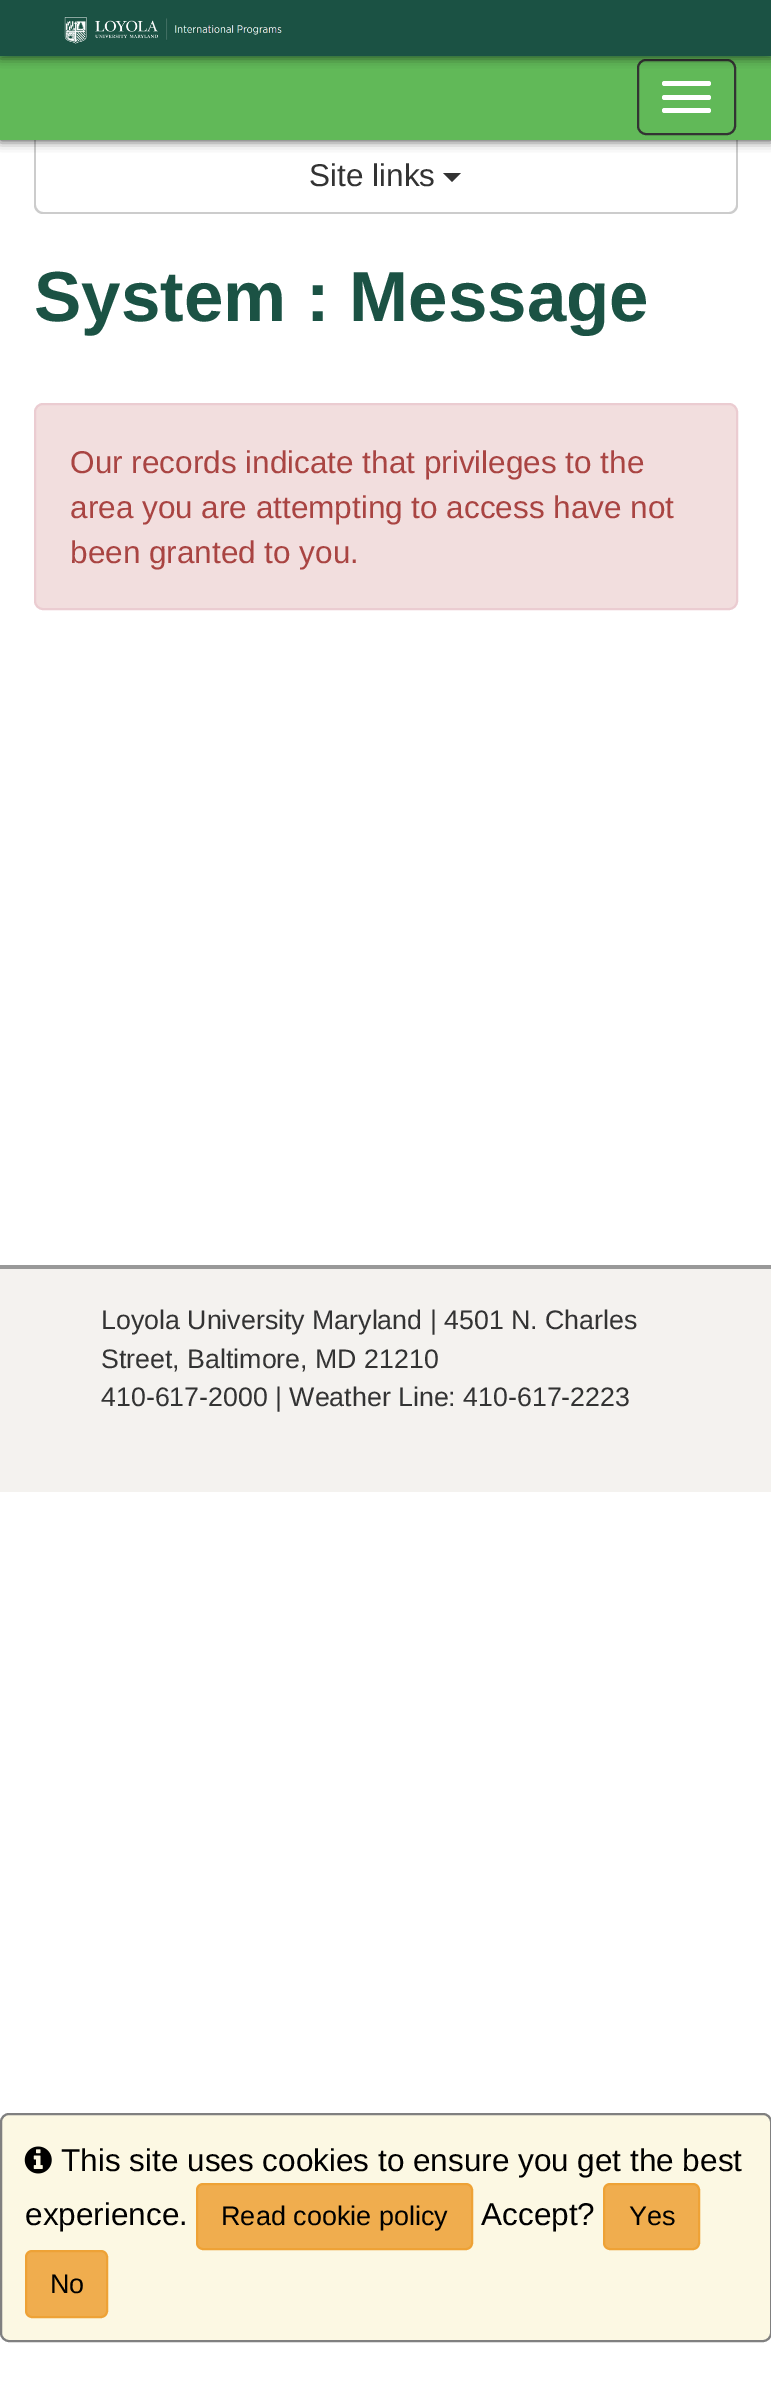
%!PS-Adobe-3.0
%%BoundingBox: 0 0 771 2387
%%LanguageLevel: 3
%%Pages: 1
%%EndComments
%%BeginProlog
/setink { dup -16 bitshift 255 div exch dup -8 bitshift 255 and 255 div exch 255 and 255 div setrgbcolor } def
/usefont { [ exch dup neg 0 0 3 -1 roll 0 0 ] selectfont } def
/setalpha { dup .setfillconstantalpha .setstrokeconstantalpha } def
/rrect { 5 dict begin { /r /h /w /y /x } { exch def } forall
  x r add y moveto x w add y 2 copy h add r arct x w add y h add x 1 index r arct
  x y h add x y r arct x y 2 copy exch w add exch r arct closepath end } def
/softshadow { 12 dict begin { /a /b /q /h /w /y /x } { exch def } forall gsave /was 0 def
  9 -2 -9 { dup b mul 4 div /e exch def 1 sub .425 mul 2.718 exch exp 1 add a .99 .min exch div /now exch def
    1 1 now sub 1 was sub div sub setalpha /was now def
    w h .min e 2 mul add 0 gt { x e sub y e sub w e 2 mul add h e 2 mul add
      q e add b .6 mul add w h .min 2 div e add .min 0 .max rrect fill } if } for grestore end } def
/drawimage { 5 dict begin { /h /w /y /x /name } { exch def } forall
  gsave x y translate w h scale
  w h 8 [w 0 0 h 0 0] name (r) file false 3 colorimage grestore end } def
%%EndProlog
%%BeginSetup
<< /PageSize [771 2387] /PageUsesTransparency true >> setpagedevice
%%EndSetup
%%Page: 1 1
0 .pushpdf14devicefilter
0 2387 translate 1 -1 scale
4 setmiterlimit
16#FFFFFF setink
0 0 771 2387 rectfill
16#CCCCCC setink
34 140 moveto 738 140 lineto 738 205 lineto 738 210 734 214 729 214 curveto 43 214 lineto 38 214 34 210 34 205 curveto closepath 36 140 moveto 736 140 lineto 736 205 lineto 736 208 733 212 729 212 curveto 43 212 lineto 39 212 36 208 36 205 curveto closepath eofill
16#000000 setink
0 56 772 84 0 5.5 0.8 softshadow
16#61B958 setink
0 56 771 84 rectfill
16#333333 setink
2 setlinewidth
638 60 97 74 8 rrect stroke
16#000000 setink
0 0 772 56 0 5.5 0.8 softshadow
16#1B5244 setink
0 0 771 16 rectfill
(img1.raw) 0 16 771 41 drawimage
16#FFFFFF setink
662 81 49 5 2.5 rrect fill
662 95 49 5 2.5 rrect fill
662 108 49 5 2.5 rrect fill
/LiberationSans-Regular 31.5 usefont
16#333333 setink
309 186 moveto (Site links) show
443 173 moveto 461 173 lineto 452 182 lineto closepath fill
/LiberationSans-Bold 70.9 usefont
16#1B5244 setink
34 321 moveto (System : Message) show
16#F2DEDE setink
35 404 702 205 8 rrect gsave fill grestore
16#EBCCD1 setink
stroke
/LiberationSans-Regular 31.5 usefont
16#A94442 setink
[
    [(Our records indicate that privileges to the) 70 473]
    [(area you are attempting to access have not) 70 518]
    [(been granted to you.) 70 563]
] { aload pop moveto show } forall
16#F4F2EF setink
0 1269 771 223 rectfill
16#999999 setink
0 1265 771 4 rectfill
/LiberationSans-Regular 26.75 usefont
16#333333 setink
[
    [(Loyola University Maryland | 4501 N. Charles) 101 1329]
    [(Street, Baltimore, MD 21210) 101 1368]
    [(410-617-2000 | Weather Line: 410-617-2223) 101 1406]
] { aload pop moveto show } forall
16#FCF8E3 setink
1 2114 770 227 8 rrect gsave fill grestore
16#808080 setink
stroke
(img2.raw) 24 2146 28 28 drawimage
/LiberationSans-Regular 31.5 usefont
16#000000 setink
61 2171 moveto (This site uses cookies to ensure you get the best) show
25 2225 moveto (experience.) show
16#F0AD4E setink
197 2184 275 65 6 rrect gsave fill grestore
16#EEA236 setink
stroke
/LiberationSans-Regular 27 usefont
16#000000 setink
221 2225 moveto (Read cookie policy) show
/LiberationSans-Regular 31.5 usefont
481 2225 moveto (Accept?) show
16#F0AD4E setink
604 2184 95 65 6 rrect gsave fill grestore
16#EEA236 setink
stroke
/LiberationSans-Regular 27 usefont
16#000000 setink
629 2225 moveto (Yes) show
16#F0AD4E setink
26 2251 81 66 6 rrect gsave fill grestore
16#EEA236 setink
stroke
16#000000 setink
50 2293 moveto (No) show
.poppdf14devicefilter showpage
%%EOF
